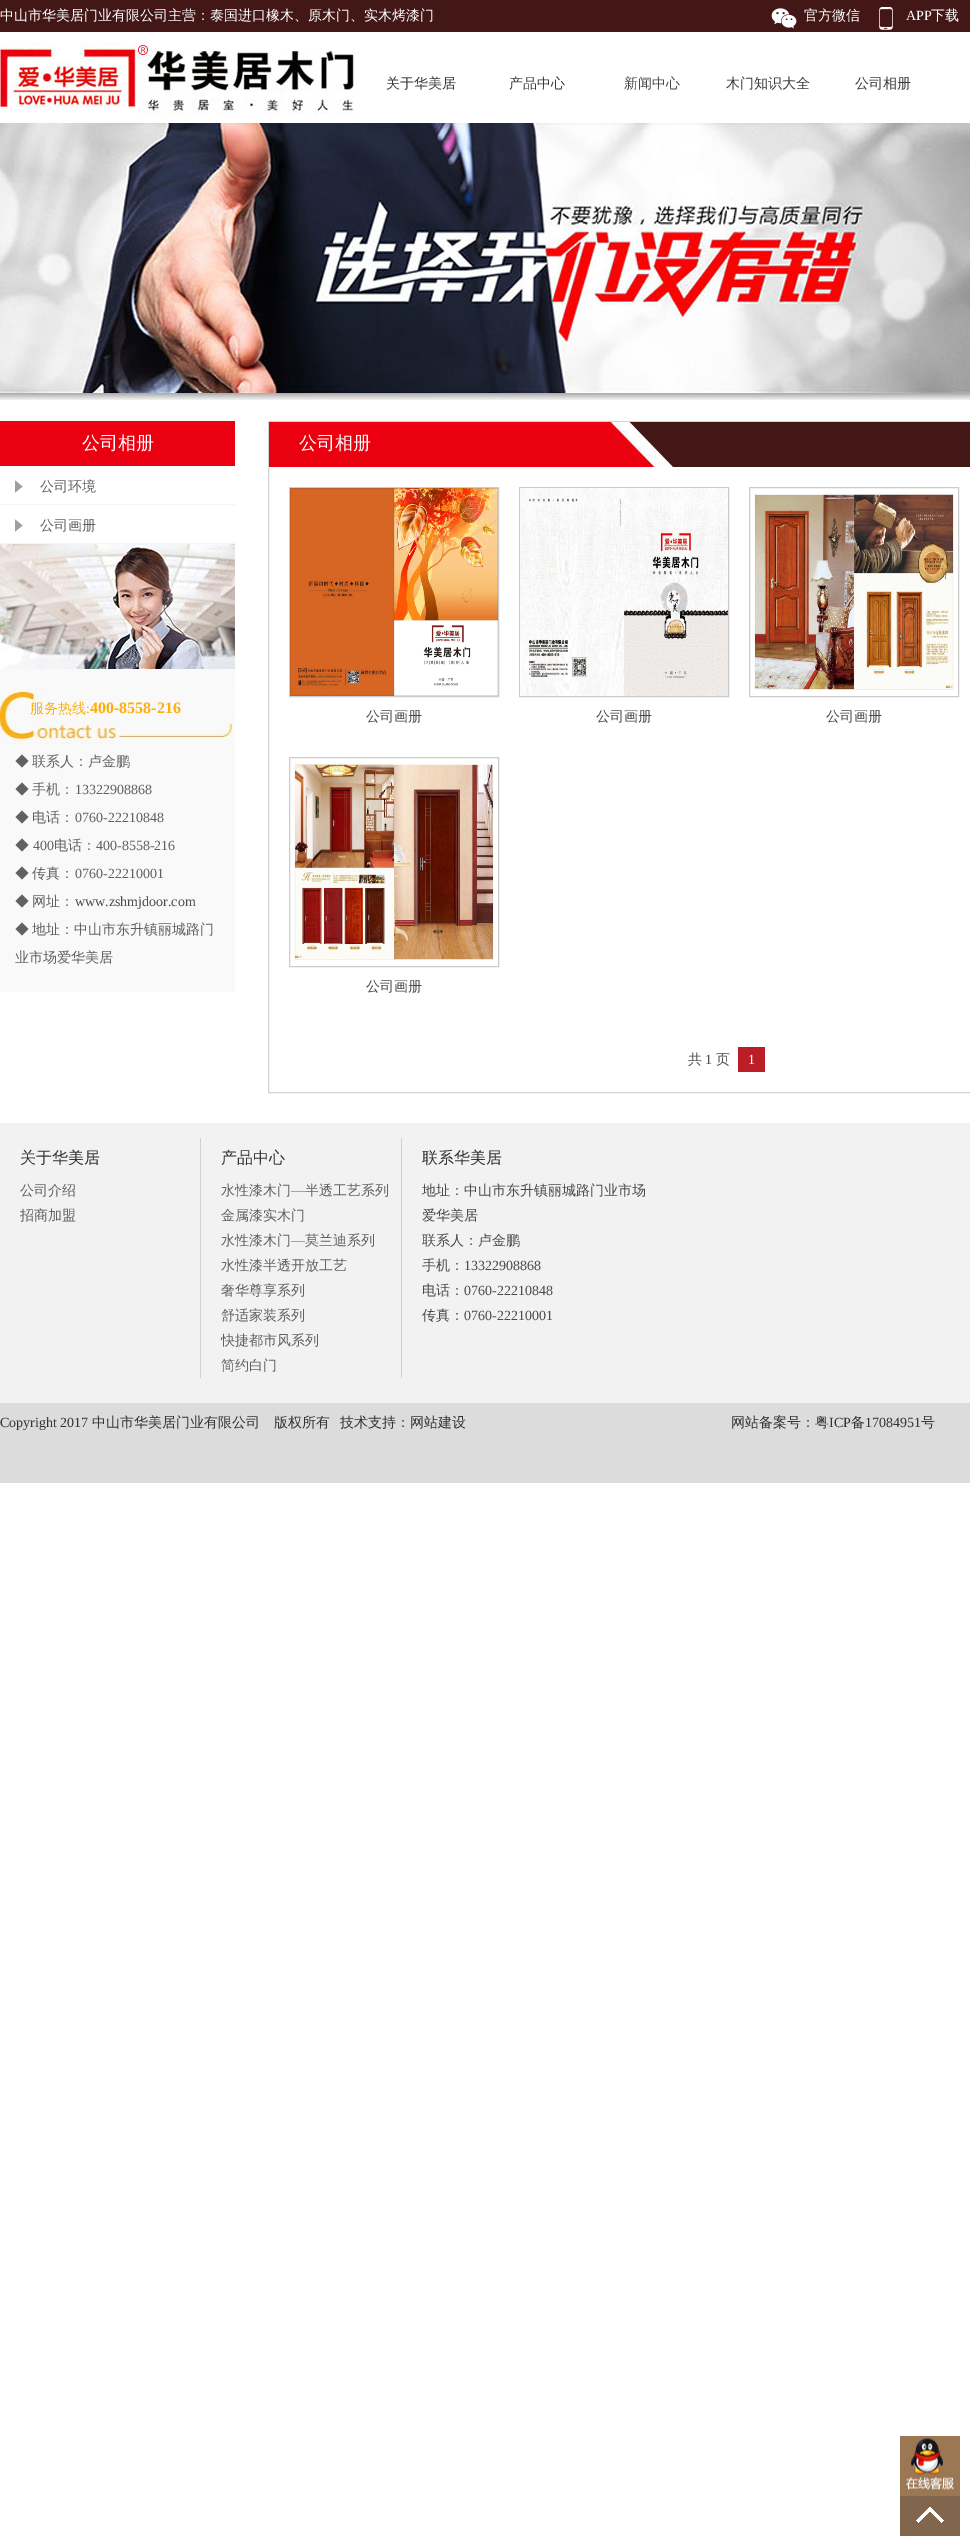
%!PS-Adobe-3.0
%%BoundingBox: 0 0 970 2546
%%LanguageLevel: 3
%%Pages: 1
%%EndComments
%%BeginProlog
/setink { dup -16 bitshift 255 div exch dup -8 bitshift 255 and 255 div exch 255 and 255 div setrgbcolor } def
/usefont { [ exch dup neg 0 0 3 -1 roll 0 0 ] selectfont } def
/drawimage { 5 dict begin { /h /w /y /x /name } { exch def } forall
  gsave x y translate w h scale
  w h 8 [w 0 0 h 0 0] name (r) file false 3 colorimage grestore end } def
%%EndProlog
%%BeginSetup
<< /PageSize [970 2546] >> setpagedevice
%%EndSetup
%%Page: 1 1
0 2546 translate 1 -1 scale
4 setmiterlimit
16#FFFFFF setink
0 0 970 2546 rectfill
16#431716 setink
0 0 970 32 rectfill
/WenQuanYiZenHei-Medium 14 usefont
16#FFFFFF setink
0 20 moveto (中山市华美居门业有限公司主营：泰国进口橡木、原木门、实木烤漆门) show
(img1.raw) 771 8 26 21 drawimage
804 20 moveto (官方微信) show
(img2.raw) 879 7 14 23 drawimage
/LiberationSerif-Regular 14 usefont
906 20 moveto (APP) show
/WenQuanYiZenHei-Medium 14 usefont
931 20 moveto (下载) show
(img3.raw) 0 43 354 72 drawimage
16#3C393A setink
386 88 moveto (关于华美居) show
509 88 moveto (产品中心) show
16#4A4A4A setink
624 88 moveto (新闻中心) show
16#3C393A setink
726 88 moveto (木门知识大全) show
855 88 moveto (公司相册) show
(img4.raw) 0 123 970 270 drawimage
gsave 0 393 moveto 970 393 lineto 970 401 lineto 0 401 lineto closepath clip newpath
<< /ShadingType 2 /ColorSpace /DeviceRGB /Coords [485 393 485 401] /Extend [true true] /Function << /FunctionType 2 /Domain [0 1] /C0 [0.659 0.659 0.659] /C1 [1 1 1] /N 1 >> >> shfill grestore
16#EA0011 setink
0 421 235 45 rectfill
/WenQuanYiZenHei-Medium 18 usefont
16#FFFFFF setink
82 449 moveto (公司相册) show
(img5.raw) 15 480 8 13 drawimage
16#F4F4F4 setink
0 504 235 1 rectfill
/WenQuanYiZenHei-Medium 14 usefont
16#616161 setink
40 491 moveto (公司环境) show
(img5.raw) 15 519 8 13 drawimage
16#F4F4F4 setink
0 543 235 1 rectfill
16#616161 setink
40 530 moveto (公司画册) show
(img6.raw) 0 544 235 125 drawimage
16#F9F9F9 setink
0 669 235 323 rectfill
(img7.raw) 0 689 235 55 drawimage
16#FDAF0F setink
30 713 moveto (服务热线) show
/LiberationSerif-Regular 14 usefont
86 713 moveto (:) show
/LiberationSerif-Bold 16 usefont
90 713 moveto (400-8558-216) show
/WenQuanYiZenHei-Medium 14 usefont
16#616161 setink
15 766 moveto -1 0 32 (◆ 联系人：卢金鹏) widthshow
15 794 moveto -1 0 32 (◆ 手机：) widthshow
/LiberationSerif-Regular 14 usefont
75 794 moveto (13322908868) show
/WenQuanYiZenHei-Medium 14 usefont
15 822 moveto -1 0 32 (◆ 电话：) widthshow
/LiberationSerif-Regular 14 usefont
75 822 moveto (0760-22210848) show
/WenQuanYiZenHei-Medium 14 usefont
15 850 moveto (◆) show
/LiberationSerif-Regular 14 usefont
33 850 moveto (400) show
/WenQuanYiZenHei-Medium 14 usefont
54 850 moveto (电话：) show
/LiberationSerif-Regular 14 usefont
96 850 moveto (400-8558-216) show
/WenQuanYiZenHei-Medium 14 usefont
15 878 moveto -1 0 32 (◆ 传真：) widthshow
/LiberationSerif-Regular 14 usefont
75 878 moveto (0760-22210001) show
/WenQuanYiZenHei-Medium 14 usefont
15 906 moveto -1 0 32 (◆ 网址：) widthshow
/LiberationSerif-Regular 14 usefont
16#4A4A4A setink
75 906 moveto (www.zshmjdoor.com) show
/WenQuanYiZenHei-Medium 14 usefont
16#616161 setink
15 934 moveto -1 0 32 (◆ 地址：中山市东升镇丽城路门) widthshow
15 962 moveto (业市场爱华美居) show
16#D3D3D3 setink
268.5 421.5 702 671 rectstroke
(img8.raw) 269 422 701 45 drawimage
/WenQuanYiZenHei-Medium 18 usefont
16#FFFFFF setink
299 449 moveto (公司相册) show
16#CCCCCC setink
289.5 487.5 209 209 rectstroke
(img9.raw) 290 488 208 208 drawimage
/WenQuanYiZenHei-Medium 14 usefont
16#4A4A4A setink
366 721 moveto (公司画册) show
16#CCCCCC setink
519.5 487.5 209 209 rectstroke
(img10.raw) 520 488 208 208 drawimage
16#4A4A4A setink
596 721 moveto (公司画册) show
16#CCCCCC setink
749.5 487.5 209 209 rectstroke
(img11.raw) 754 493 200 197 drawimage
16#4A4A4A setink
826 721 moveto (公司画册) show
16#CCCCCC setink
289.5 757.5 209 209 rectstroke
(img12.raw) 294 763 200 197 drawimage
16#4A4A4A setink
366 991 moveto (公司画册) show
688 1064 moveto (共) show
/LiberationSerif-Regular 14 usefont
705 1064 moveto (1) show
/WenQuanYiZenHei-Medium 14 usefont
716 1064 moveto (页) show
16#BB1E27 setink
738 1047 27 25 rectfill
/LiberationSerif-Regular 14 usefont
16#FFFFFF setink
748 1064 moveto (1) show
16#F3F2F2 setink
0 1123 970 280 rectfill
16#D7CEC8 setink
200 1138 1 240 rectfill
/WenQuanYiZenHei-Medium 16 usefont
16#333333 setink
20 1163 moveto (关于华美居) show
/WenQuanYiZenHei-Medium 14 usefont
16#616161 setink
20 1195 moveto (公司介绍) show
20 1220 moveto (招商加盟) show
16#D7CEC8 setink
401 1138 1 240 rectfill
/WenQuanYiZenHei-Medium 16 usefont
16#333333 setink
221 1163 moveto (产品中心) show
/WenQuanYiZenHei-Medium 14 usefont
16#616161 setink
221 1195 moveto (水性漆木门) show
/LiberationSerif-Regular 14 usefont
291 1195 moveto (—) show
/WenQuanYiZenHei-Medium 14 usefont
[
    [(半透工艺系列) 305 1195]
    [(金属漆实木门) 221 1220]
    [(水性漆木门) 221 1245]
] { aload pop moveto show } forall
/LiberationSerif-Regular 14 usefont
291 1245 moveto (—) show
/WenQuanYiZenHei-Medium 14 usefont
[
    [(莫兰迪系列) 305 1245]
    [(水性漆半透开放工艺) 221 1270]
    [(奢华尊享系列) 221 1295]
    [(舒适家装系列) 221 1320]
    [(快捷都市风系列) 221 1345]
    [(简约白门) 221 1370]
] { aload pop moveto show } forall
/WenQuanYiZenHei-Medium 16 usefont
16#333333 setink
422 1163 moveto (联系华美居) show
/WenQuanYiZenHei-Medium 14 usefont
16#4A4A4A setink
[
    [(地址：中山市东升镇丽城路门业市场) 422 1195]
    [(爱华美居) 422 1220]
    [(联系人：卢金鹏) 422 1245]
    [(手机：) 422 1270]
] { aload pop moveto show } forall
/LiberationSerif-Regular 14 usefont
464 1270 moveto (13322908868) show
/WenQuanYiZenHei-Medium 14 usefont
422 1295 moveto (电话：) show
/LiberationSerif-Regular 14 usefont
464 1295 moveto (0760-22210848) show
/WenQuanYiZenHei-Medium 14 usefont
422 1320 moveto (传真：) show
/LiberationSerif-Regular 14 usefont
464 1320 moveto (0760-22210001) show
16#DCDCDC setink
0 1403 970 80 rectfill
16#333333 setink
0 1427 moveto (Copyright 2017) show
/WenQuanYiZenHei-Medium 14 usefont
[
    [(中山市华美居门业有限公司) 92 1427]
    [(版权所有) 274 1427]
    [(技术支持：网站建设) 340 1427]
    [(网站备案号：粤) 731 1427]
] { aload pop moveto show } forall
/LiberationSerif-Regular 14 usefont
829 1427 moveto (ICP) show
/WenQuanYiZenHei-Medium 14 usefont
851 1427 moveto (备) show
/LiberationSerif-Regular 14 usefont
865 1427 moveto (17084951) show
/WenQuanYiZenHei-Medium 14 usefont
921 1427 moveto (号) show
16#9C7754 setink
900 2436 60 60 rectfill
(img13.raw) 906 2438 48 52 drawimage
16#81654C setink
900 2496 60 40 rectfill
(img14.raw) 916 2507 28 16 drawimage
showpage
%%EOF
